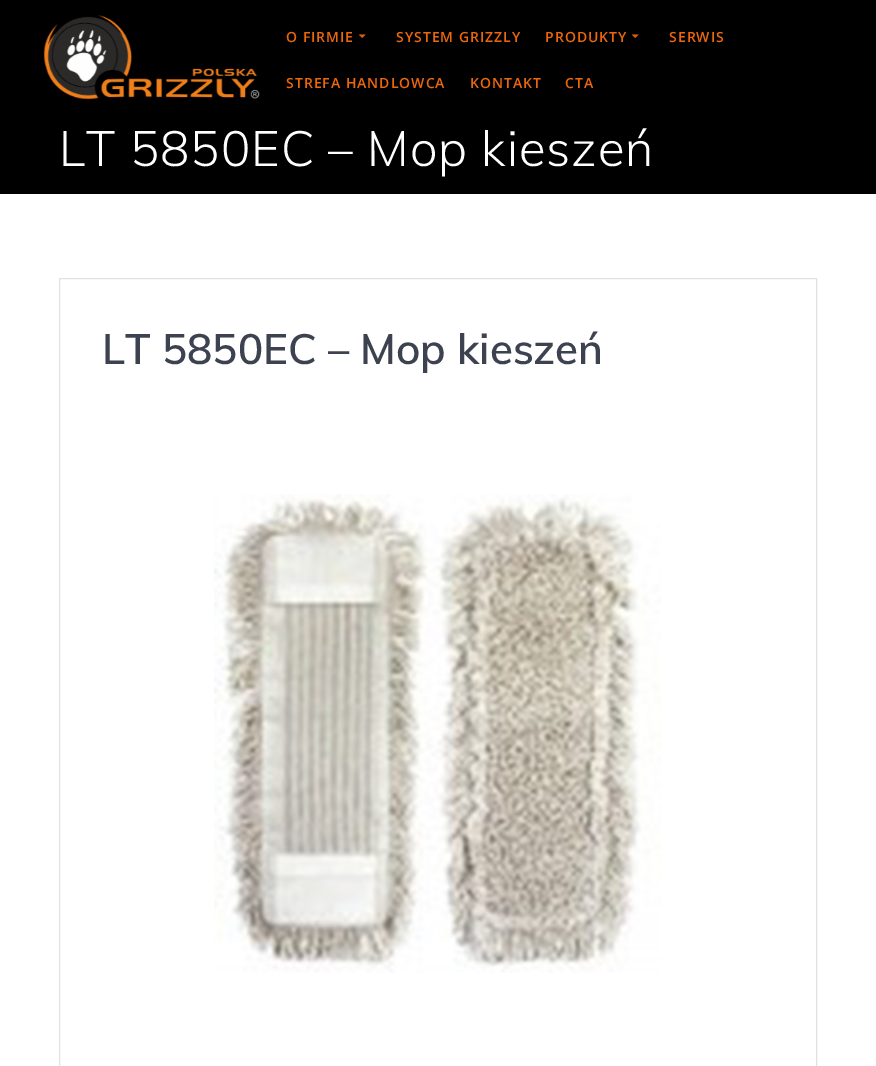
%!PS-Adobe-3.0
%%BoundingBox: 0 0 876 1066
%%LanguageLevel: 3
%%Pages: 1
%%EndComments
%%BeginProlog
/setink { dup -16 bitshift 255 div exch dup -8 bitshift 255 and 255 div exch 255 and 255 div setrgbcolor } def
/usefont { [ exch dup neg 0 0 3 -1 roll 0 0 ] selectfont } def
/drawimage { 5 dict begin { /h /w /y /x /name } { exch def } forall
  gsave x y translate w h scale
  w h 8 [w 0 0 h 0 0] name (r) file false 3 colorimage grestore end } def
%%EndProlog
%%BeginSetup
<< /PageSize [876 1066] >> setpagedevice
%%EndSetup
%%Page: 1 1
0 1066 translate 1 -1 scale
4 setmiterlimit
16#FFFFFF setink
0 0 876 1066 rectfill
16#000000 setink
0 0 876 194 rectfill
(img1.raw) 43 15 217 85 drawimage
/OpenSans-SemiBold 14 usefont
16#EC670C setink
286 42 moveto 1 0 (O FIRMIE) ashow
(img2.raw) 359 34 7 4 drawimage
396 42 moveto 1 0 (SYSTEM GRIZZLY) ashow
545 42 moveto 1 0 (PRODUKTY) ashow
(img2.raw) 632 34 7 4 drawimage
669 42 moveto 1 0 (SERWIS) ashow
286 88 moveto 1 0 (STREFA HANDLOWCA) ashow
470 88 moveto 1 0 (KONTAKT) ashow
565 88 moveto 1 0 (CTA) ashow
/Muli-Light 49 usefont
16#FFFFFF setink
59 166 moveto 0.9 0 (LT 5850EC – Mop kieszeń) ashow
16#E0E1E1 setink
59.5 278.5 757 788 rectstroke
/Muli-SemiBold 42 usefont
16#3C424F setink
102 364 moveto (LT 5850EC – Mop kieszeń) show
(img3.raw) 214 494 447 479 drawimage
showpage
%%EOF
